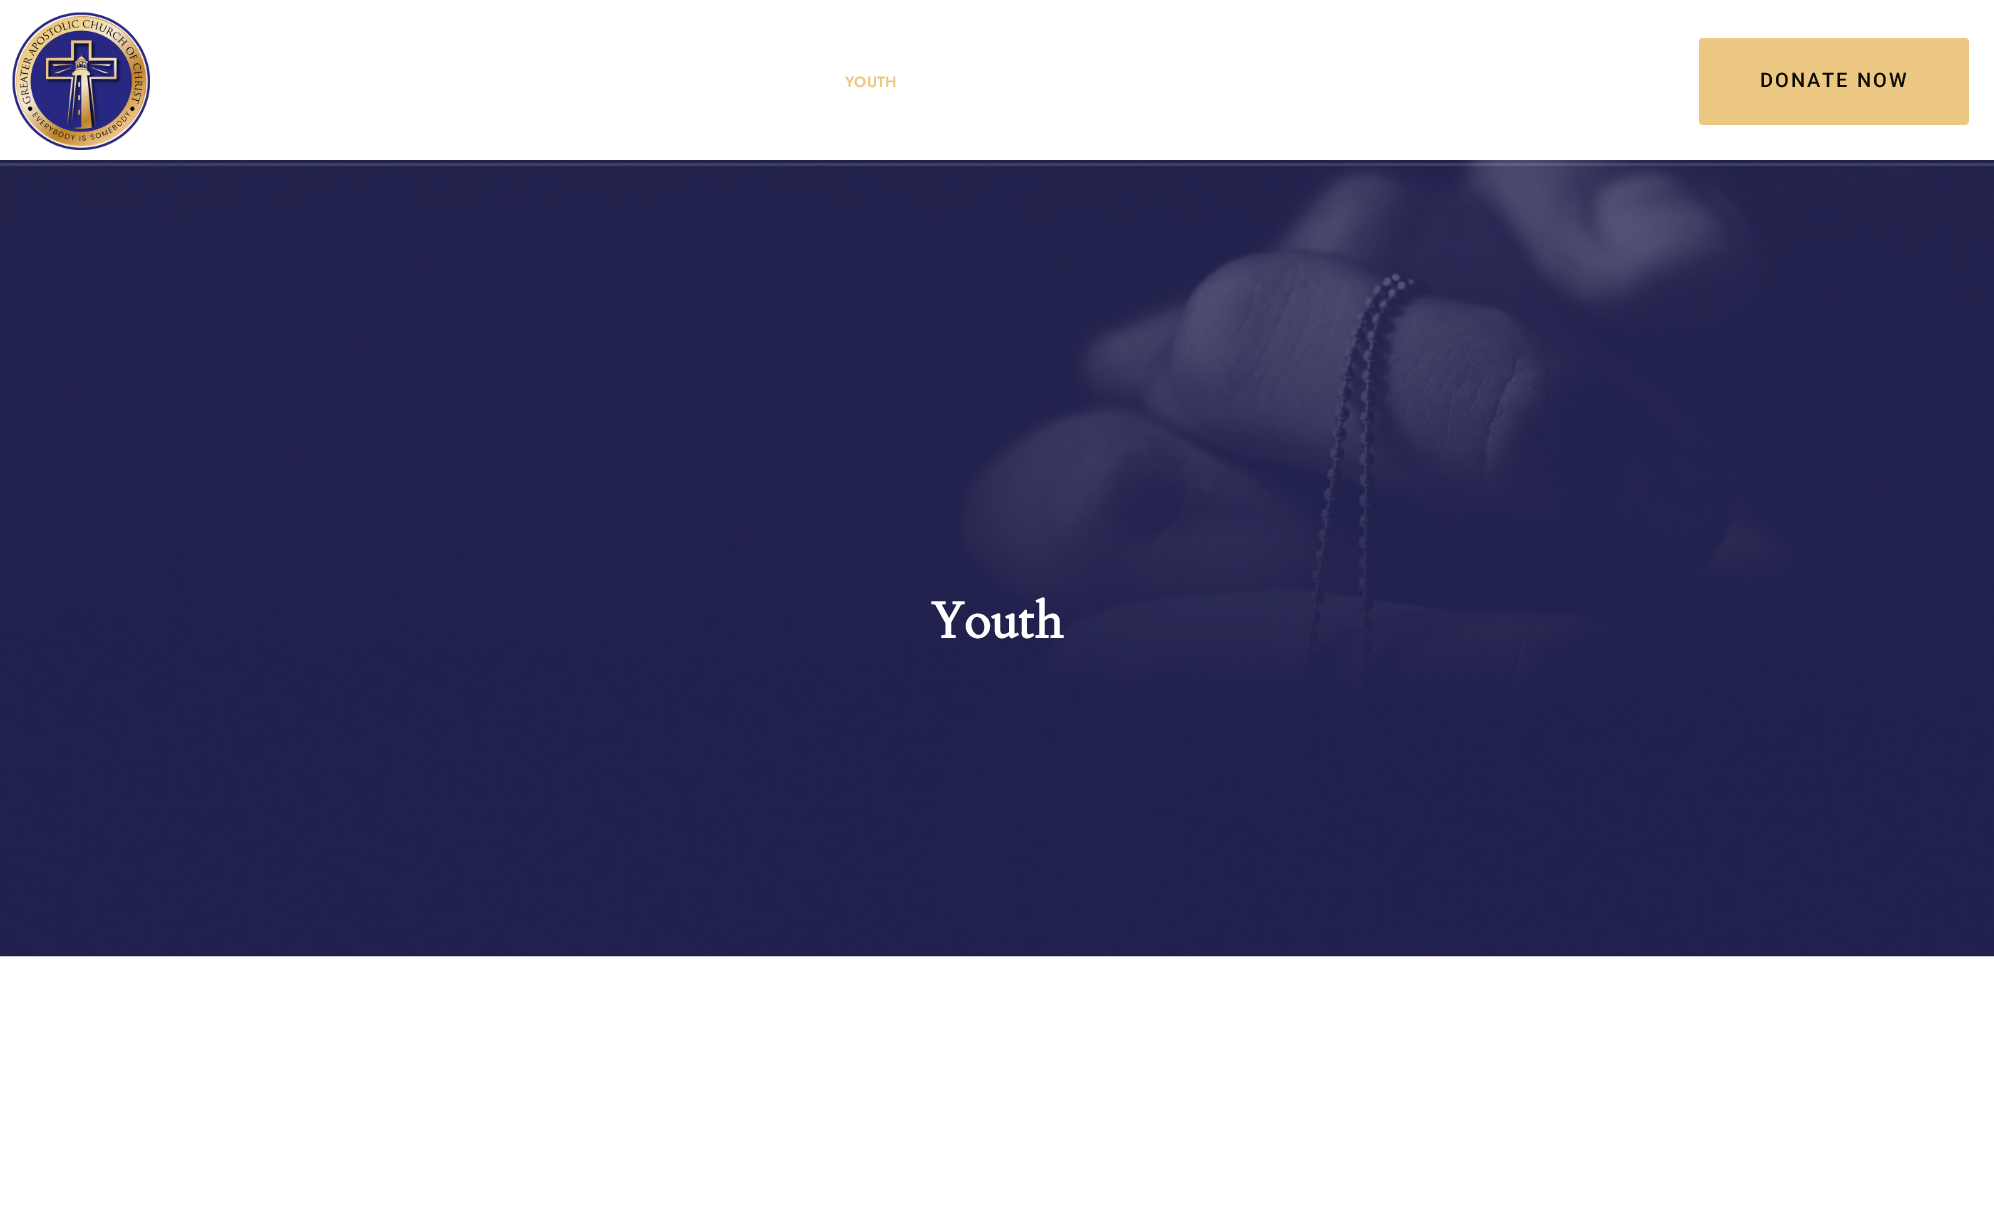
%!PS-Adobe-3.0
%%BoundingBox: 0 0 1994 1206
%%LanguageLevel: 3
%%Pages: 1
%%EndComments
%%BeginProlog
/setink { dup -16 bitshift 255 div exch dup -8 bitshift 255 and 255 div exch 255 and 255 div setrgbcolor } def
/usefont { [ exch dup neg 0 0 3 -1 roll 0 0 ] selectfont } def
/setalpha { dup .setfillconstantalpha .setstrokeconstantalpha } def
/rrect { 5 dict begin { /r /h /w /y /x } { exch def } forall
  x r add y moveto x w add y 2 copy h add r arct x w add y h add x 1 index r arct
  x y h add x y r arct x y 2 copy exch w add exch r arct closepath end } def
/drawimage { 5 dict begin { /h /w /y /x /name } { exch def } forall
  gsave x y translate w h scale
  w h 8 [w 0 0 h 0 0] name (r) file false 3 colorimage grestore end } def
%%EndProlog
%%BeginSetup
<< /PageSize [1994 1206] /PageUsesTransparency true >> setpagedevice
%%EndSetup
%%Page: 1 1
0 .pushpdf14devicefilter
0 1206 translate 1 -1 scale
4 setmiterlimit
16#FFFFFF setink
0 0 1994 1206 rectfill
(img2.raw) 0 160 1994 797 drawimage
0.12 setalpha
0 163 1994 3 rectfill
1 setalpha
(img1.raw) 12 12 138 138 drawimage
/Jost-SemiBold 15 usefont
16#ECC882 setink
845 87 moveto (YOUTH) show
16#FCFDFD setink
1.2 setlinewidth
1599 81 moveto 1599 64.5 1612.5 50.5 1629.5 50.5 curveto 1646.5 50.5 1660 64.5 1660 81 curveto 1660 98 1646.5 112 1629.5 112 curveto 1612.5 112 1599 98 1599 81 curveto closepath stroke
16#ECC882 setink
1699 38 270 87 4 rrect fill
/Roboto-Medium 20 usefont
16#0C0B07 setink
1760 87 moveto 2 0 (DONATE NOW) ashow
/Joan-Bold 50 usefont
16#FFFFFF setink
931 638 moveto (Youth) show
.poppdf14devicefilter showpage
%%EOF
